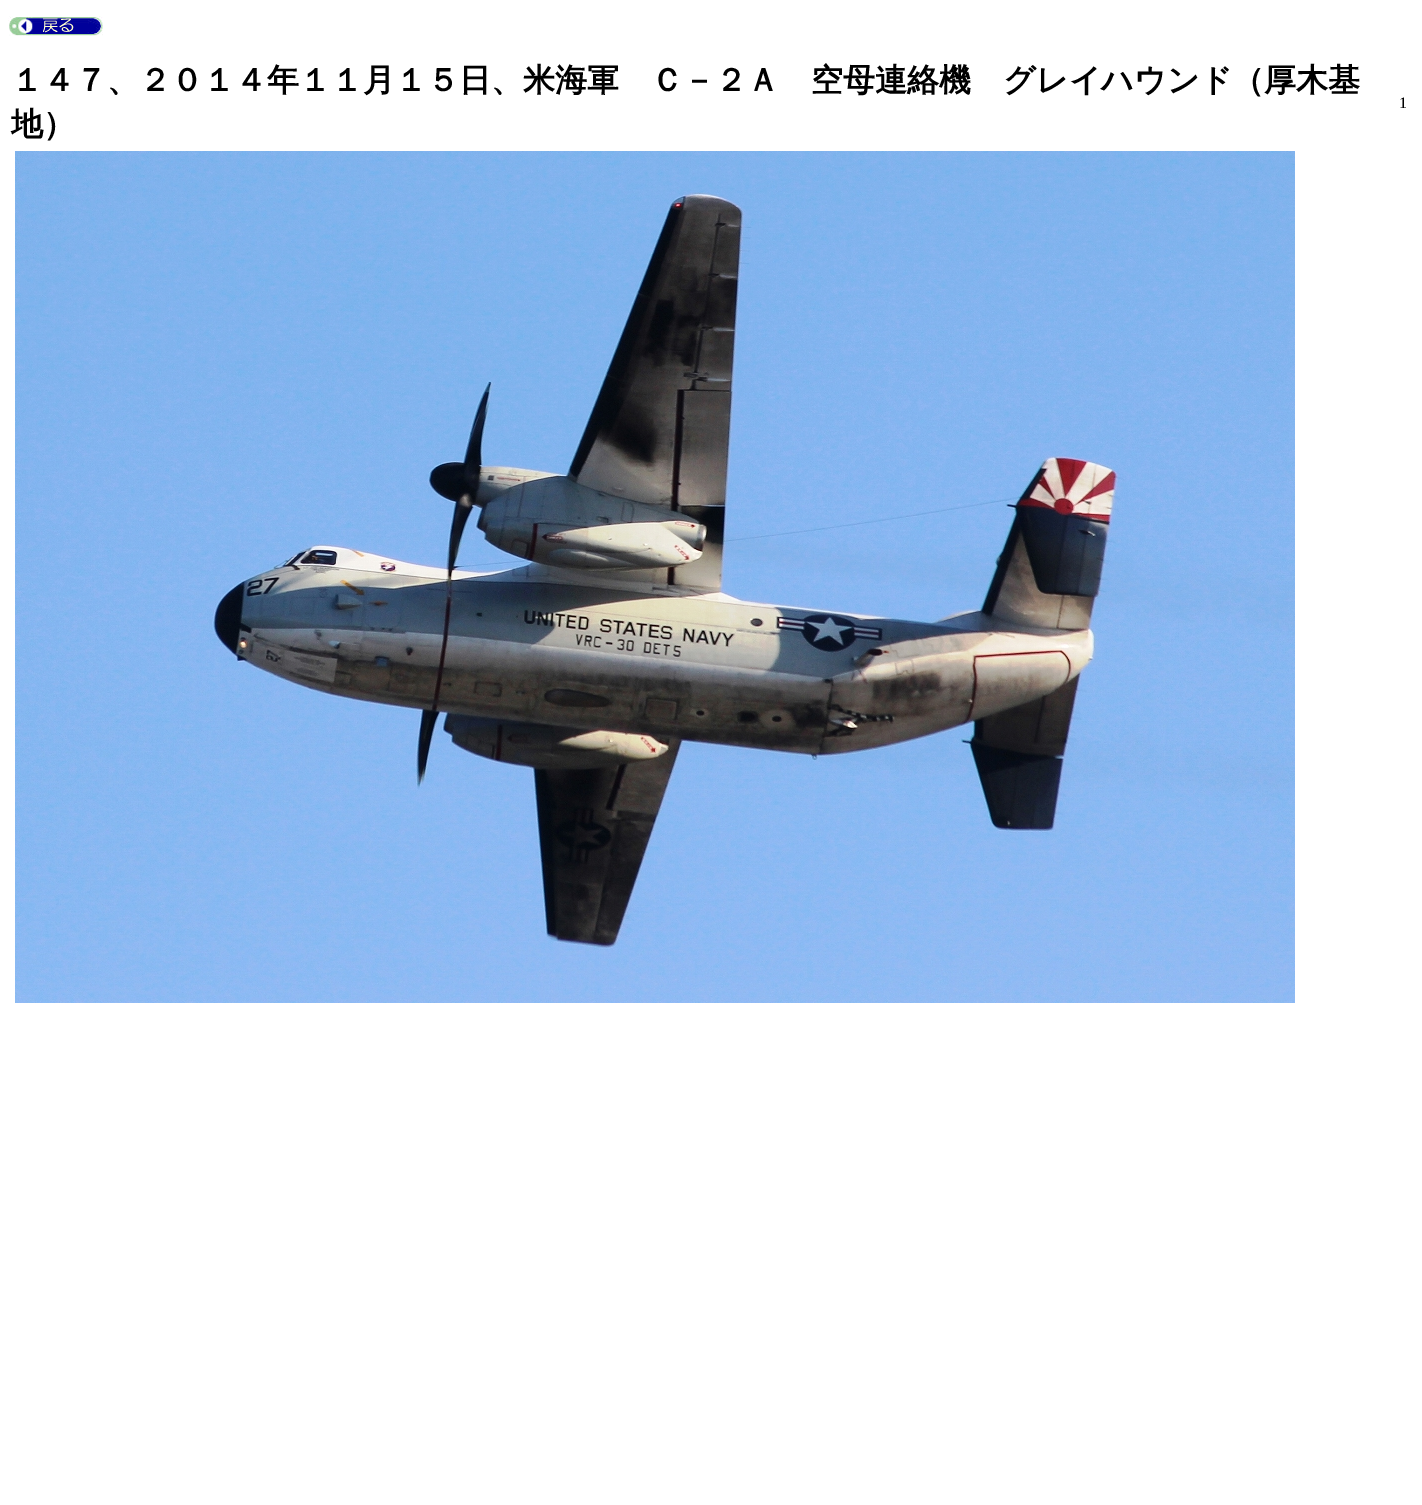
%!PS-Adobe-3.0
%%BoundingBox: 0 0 1422 1505
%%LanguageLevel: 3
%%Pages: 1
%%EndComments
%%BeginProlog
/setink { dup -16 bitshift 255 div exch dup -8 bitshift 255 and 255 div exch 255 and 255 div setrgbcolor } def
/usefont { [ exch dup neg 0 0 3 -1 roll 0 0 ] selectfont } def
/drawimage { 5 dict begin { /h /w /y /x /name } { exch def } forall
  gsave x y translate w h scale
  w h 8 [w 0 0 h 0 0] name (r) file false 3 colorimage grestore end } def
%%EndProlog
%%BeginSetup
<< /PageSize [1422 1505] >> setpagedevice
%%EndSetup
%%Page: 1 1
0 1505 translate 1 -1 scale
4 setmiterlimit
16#FFFFFF setink
0 0 1422 1505 rectfill
(img1.raw) 8 16 95 20 drawimage
/WenQuanYiZenHei-Bold 32 usefont
16#000000 setink
11 91 moveto (１４７、２０１４年１１月１５日、米海軍　Ｃ－２Ａ　空母連絡機　グレイハウンド（厚木基) show
11 135 moveto (地）) show
/LiberationSerif-Regular 16 usefont
1399 108 moveto (1) show
(img2.raw) 15 151 1280 852 drawimage
showpage
%%EOF
